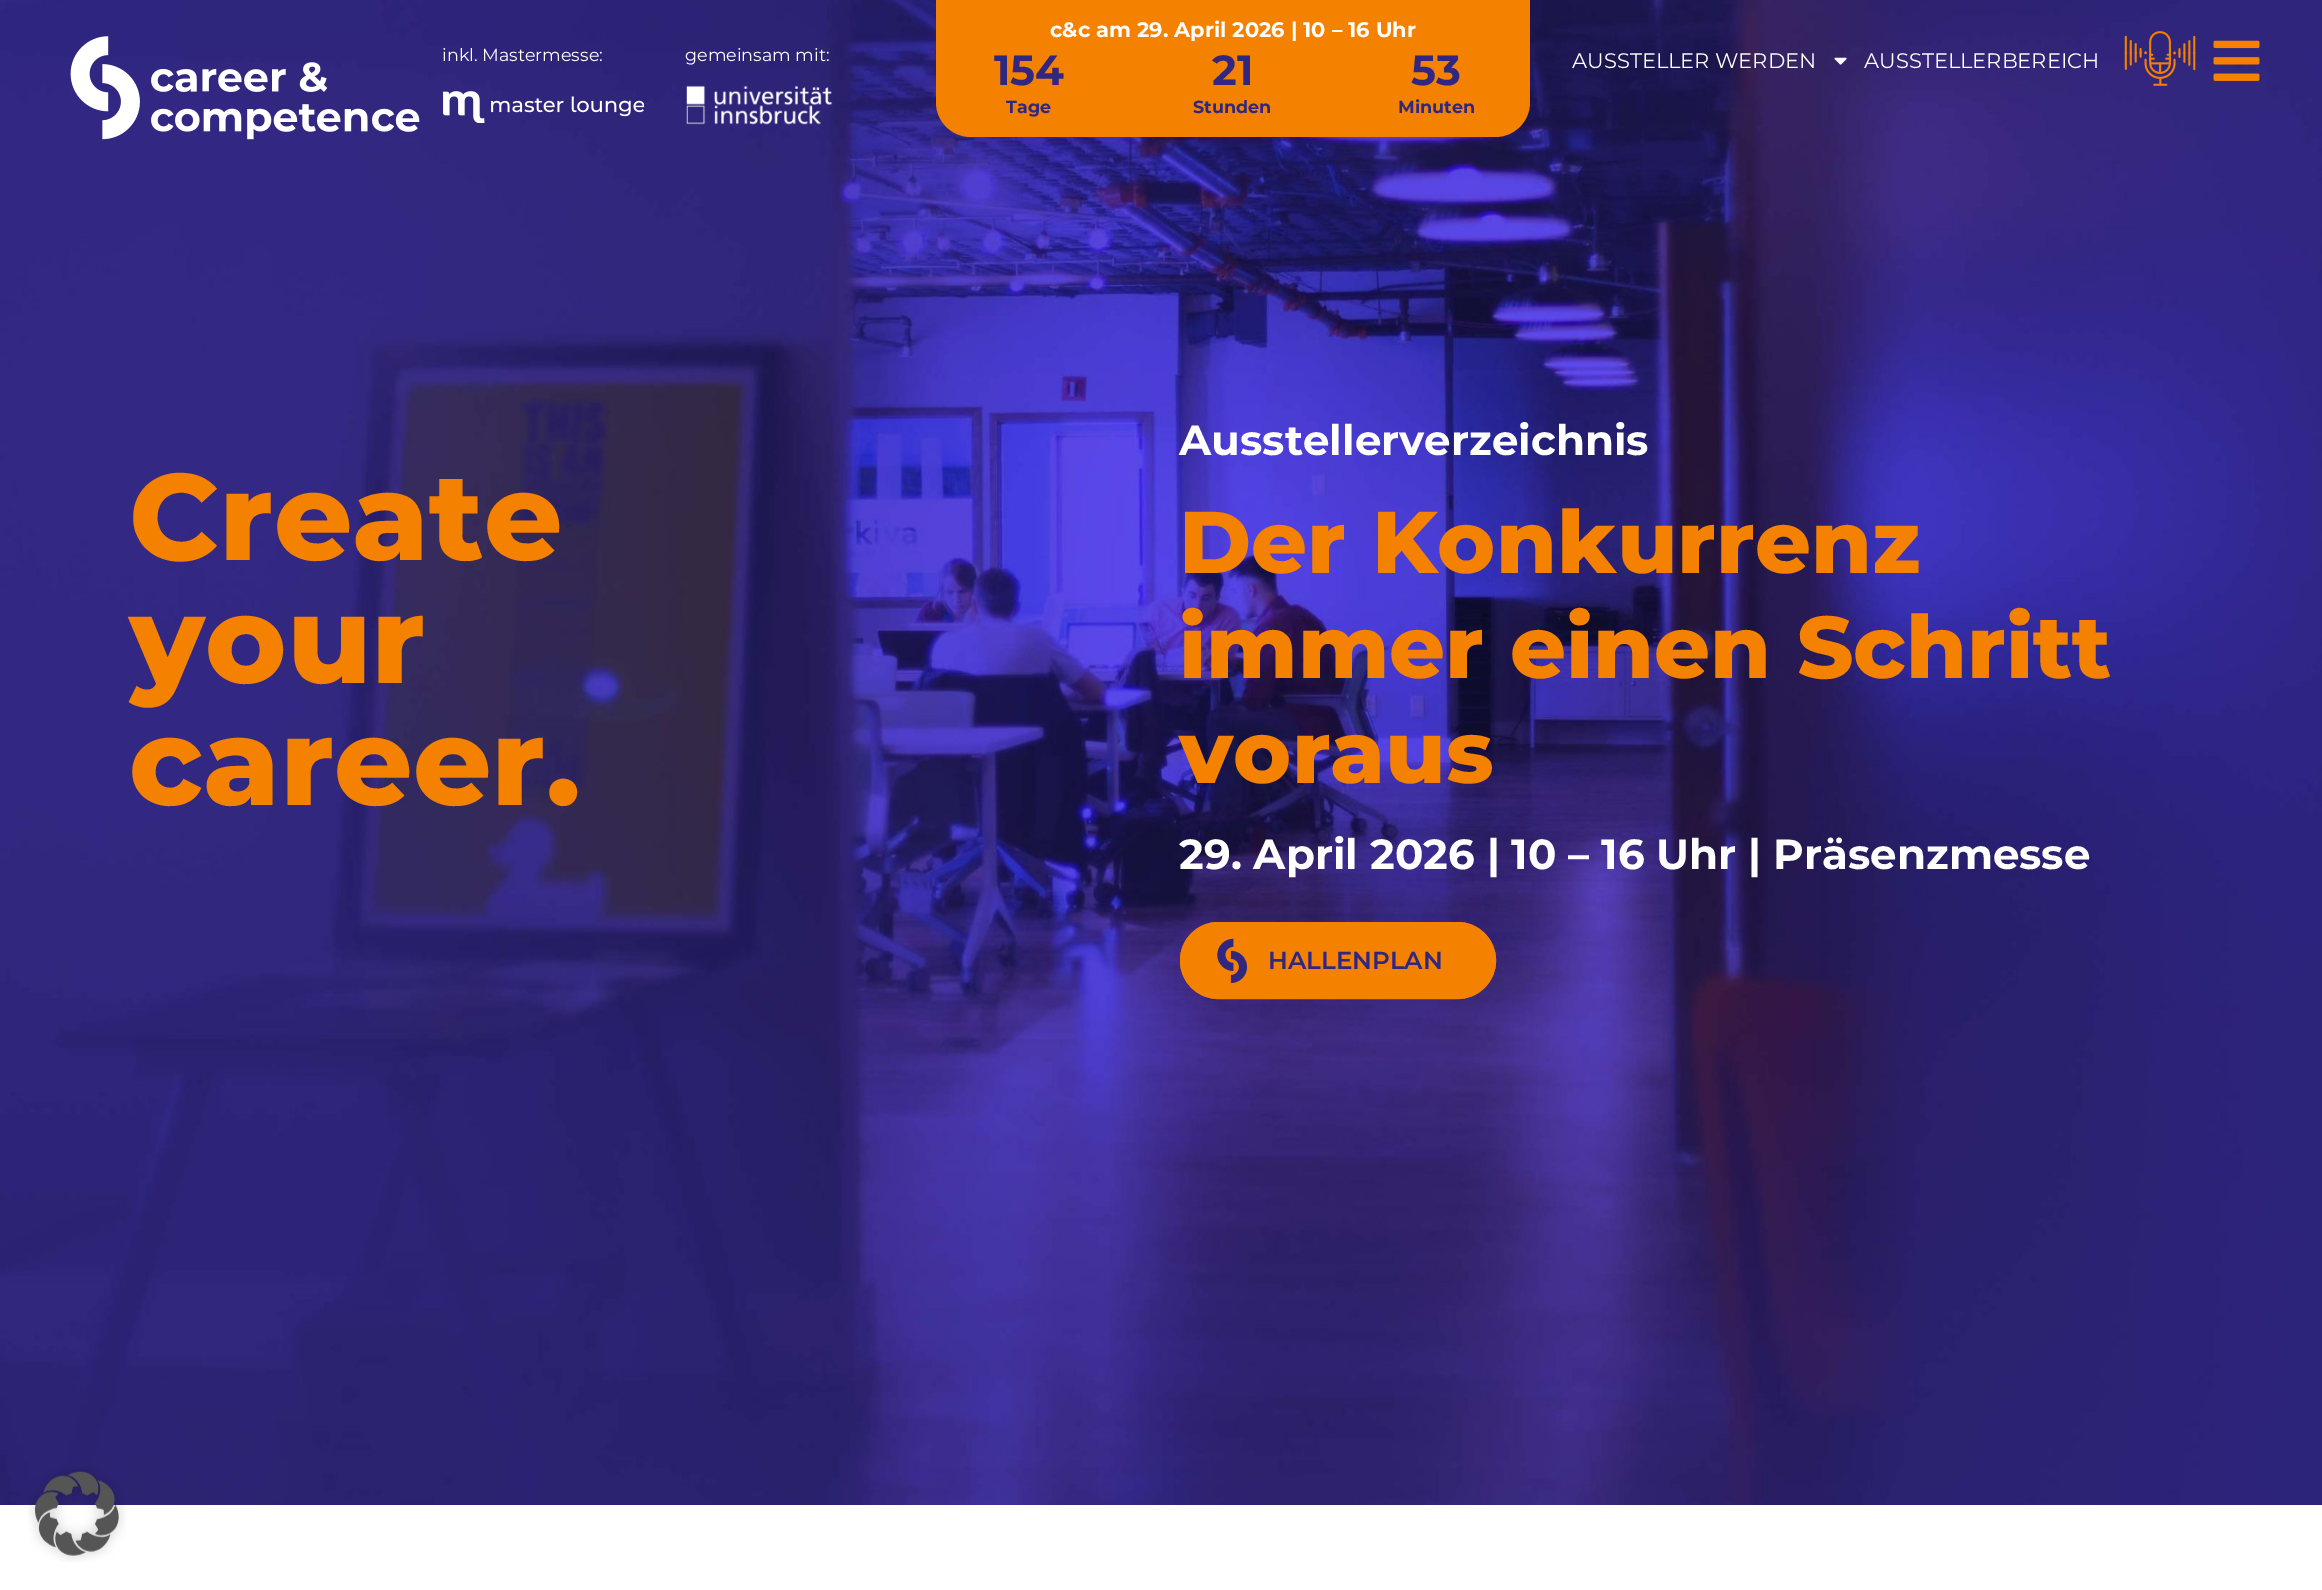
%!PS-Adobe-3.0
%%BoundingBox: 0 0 2322 1590
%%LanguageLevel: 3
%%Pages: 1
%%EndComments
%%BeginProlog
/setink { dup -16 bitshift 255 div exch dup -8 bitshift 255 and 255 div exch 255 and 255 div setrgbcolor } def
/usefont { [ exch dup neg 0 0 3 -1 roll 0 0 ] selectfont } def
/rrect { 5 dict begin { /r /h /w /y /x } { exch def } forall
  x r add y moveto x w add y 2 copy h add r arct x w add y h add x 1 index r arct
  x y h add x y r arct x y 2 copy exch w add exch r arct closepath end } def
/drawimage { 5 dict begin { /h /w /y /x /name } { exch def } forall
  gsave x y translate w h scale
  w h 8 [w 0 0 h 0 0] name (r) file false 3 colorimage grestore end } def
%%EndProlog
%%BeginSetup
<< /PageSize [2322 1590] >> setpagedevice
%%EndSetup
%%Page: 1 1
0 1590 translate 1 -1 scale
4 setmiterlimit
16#FFFFFF setink
0 0 2322 1590 rectfill
(img7.raw) 0 0 2322 1505 drawimage
(img1.raw) 70 36 350 104 drawimage
/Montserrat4-Thin 17.5 usefont
442 61 moveto (inkl. Mastermesse:) show
(img2.raw) 443 91 201 32 drawimage
685 61 moveto (gemeinsam mit:) show
(img3.raw) 686 85 147 40 drawimage
16#F48100 setink
936 0 594 42 rectfill
/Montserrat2-Thin 21 usefont
16#FFFFFF setink
1050 37 moveto (c&c am 29. April 2026 | 10 – 16 Uhr) show
16#F48100 setink
936 42 moveto 1530 42 lineto 1530 102 lineto 1530 121.5 1514.5 137 1495 137 curveto 971 137 lineto 951.5 137 936 121.5 936 102 curveto closepath fill
/Montserrat2-Thin 42 usefont
16#312781 setink
994 85 moveto (154) show
/Montserrat2-Thin 17.5 usefont
1006 113 moveto (Tage) show
/Montserrat2-Thin 42 usefont
1212 85 moveto (21) show
/Montserrat2-Thin 17.5 usefont
1193 113 moveto (Stunden) show
/Montserrat2-Thin 42 usefont
1411 85 moveto (53) show
/Montserrat2-Thin 17.5 usefont
1398 113 moveto (Minuten) show
/Montserrat4-Thin 21 usefont
16#FFFFFF setink
1572 68 moveto (AUSSTELLER WERDEN) show
(img4.raw) 1834 57 13 8 drawimage
1864 68 moveto (AUSSTELLERBEREICH) show
(img5.raw) 2124 31 72 55 drawimage
(img6.raw) 2213 40 47 41 drawimage
/Montserrat-Thin 122.5 usefont
16#F48100 setink
[
    [(Create) 129 560]
    [(your) 129 683]
    [(career.) 129 805]
] { aload pop moveto show } forall
/Montserrat2-Thin 42 usefont
16#FFFFFF setink
1179 455 moveto (Ausstellerverzeichnis) show
/Montserrat-Thin 87.5 usefont
16#F48100 setink
[
    [(Der Konkurrenz) 1179 573]
    [(immer einen Schritt) 1179 678]
    [(voraus) 1179 783]
] { aload pop moveto show } forall
/Montserrat2-Thin 42 usefont
16#FFFFFF setink
1179 869 moveto (29. April 2026 | 10 – 16 Uhr | Präsenzmesse) show
16#F48100 setink
1180 922 316 77 38.5 rrect fill
(img8.raw) 1217 938 31 46 drawimage
2 setlinewidth
1181 923 314 75 37.5 rrect stroke
/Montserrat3-Thin 24.5 usefont
16#312781 setink
1268 969 moveto (HALLENPLAN) show
(img9.raw) 28 1467 98 95 drawimage
showpage
%%EOF
